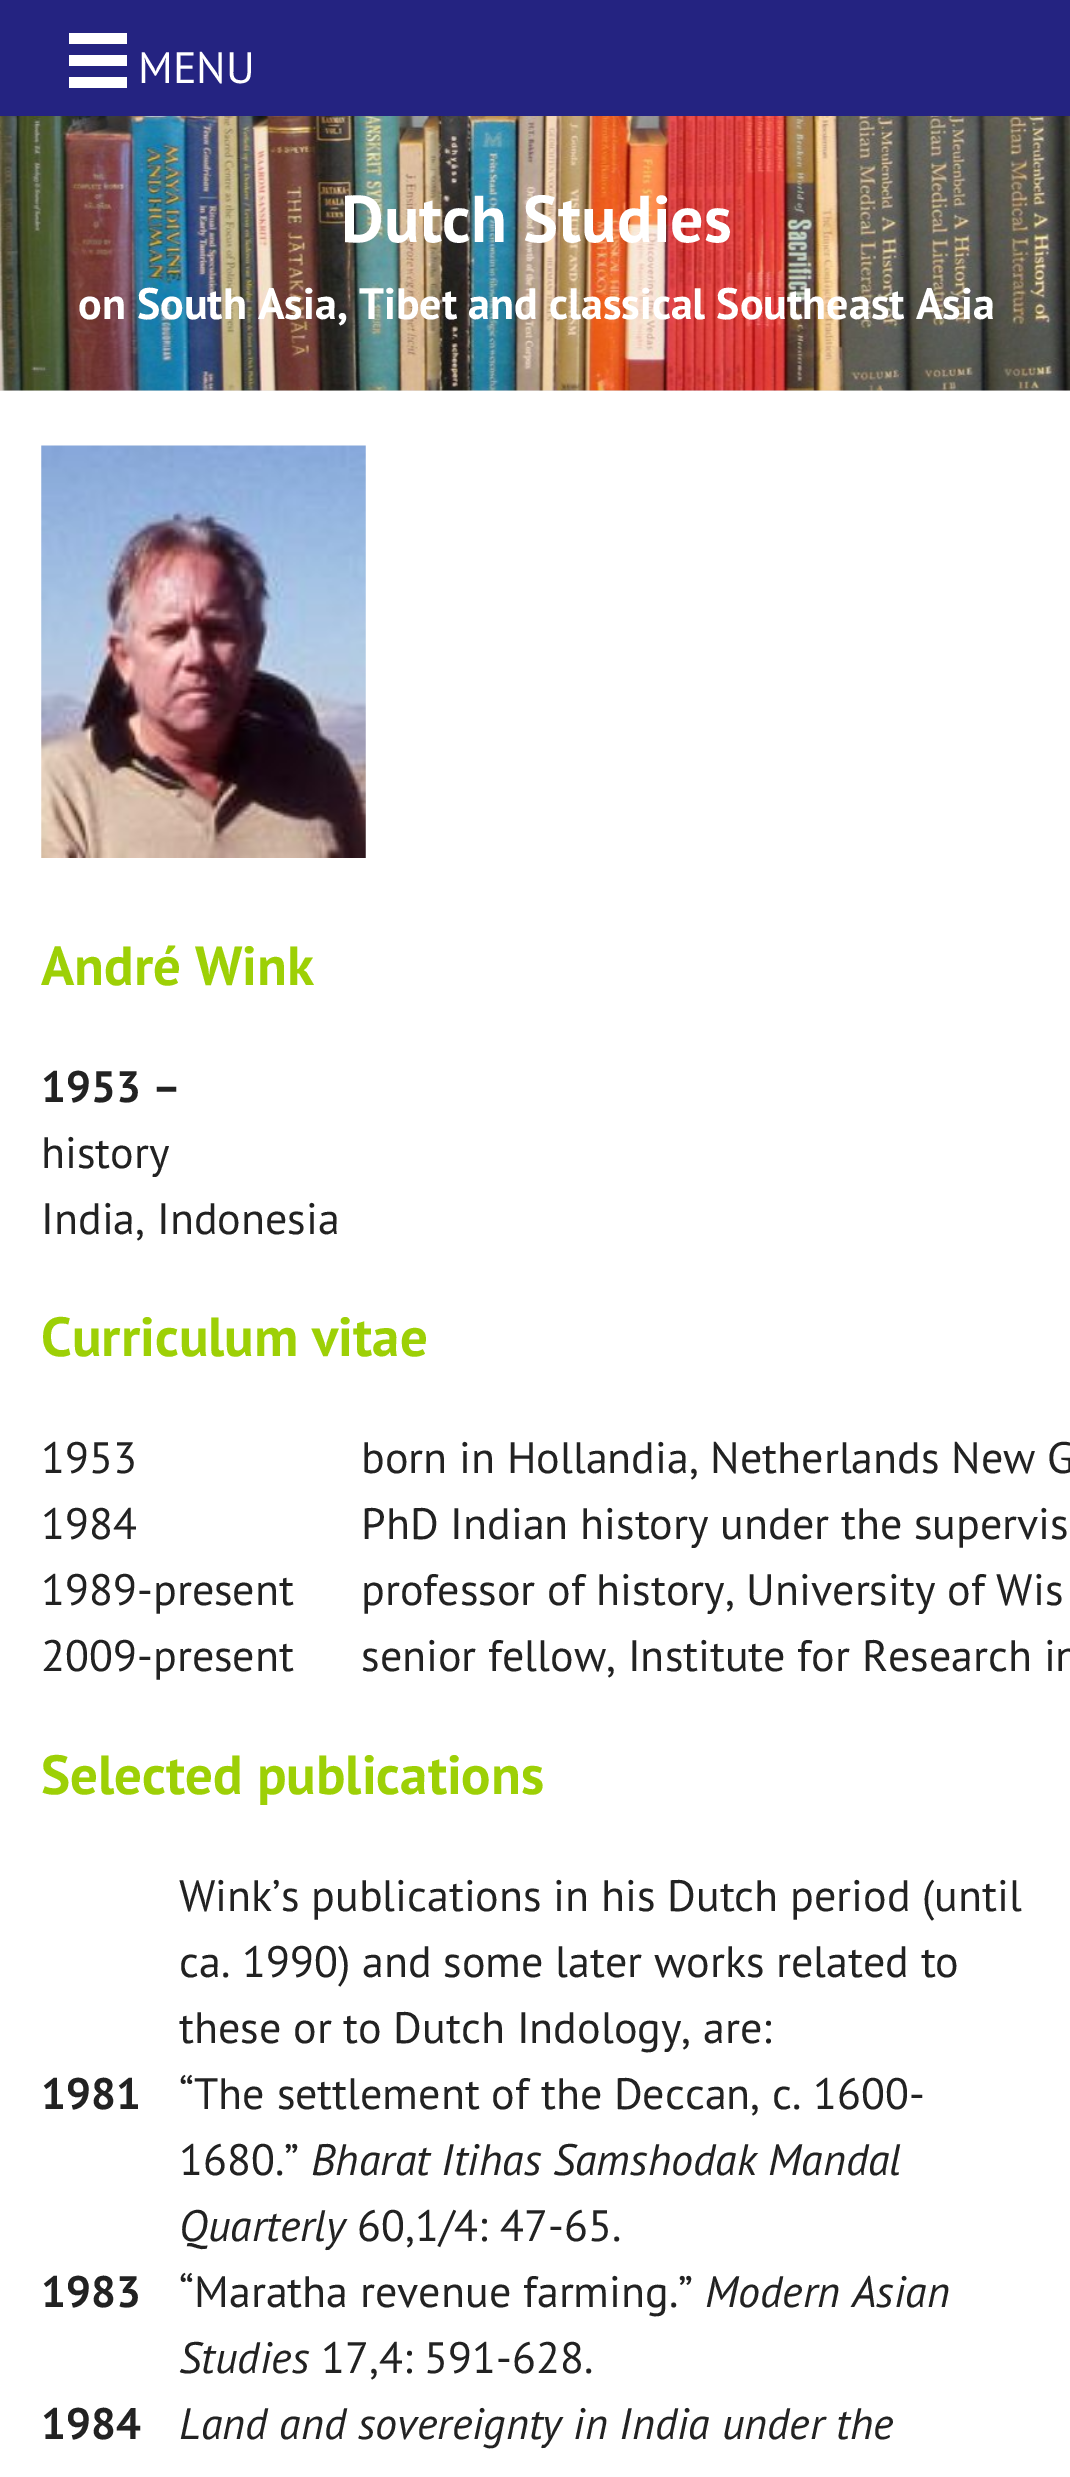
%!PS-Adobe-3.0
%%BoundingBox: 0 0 1070 2477
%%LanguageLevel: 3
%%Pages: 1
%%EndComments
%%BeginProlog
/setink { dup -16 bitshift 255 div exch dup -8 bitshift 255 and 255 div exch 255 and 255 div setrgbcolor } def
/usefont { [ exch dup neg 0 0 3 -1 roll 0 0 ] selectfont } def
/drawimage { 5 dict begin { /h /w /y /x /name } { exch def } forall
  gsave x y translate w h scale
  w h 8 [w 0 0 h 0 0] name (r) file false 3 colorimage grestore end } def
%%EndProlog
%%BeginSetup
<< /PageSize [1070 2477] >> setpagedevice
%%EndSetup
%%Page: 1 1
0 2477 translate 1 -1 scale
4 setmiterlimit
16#FFFFFF setink
0 0 1070 2477 rectfill
[
    [0 0 1070 116 16#242381]
    [69 33 58 11 16#FFFFFF]
    [69 55 58 11 16#FFFFFF]
    [69 77 58 11 16#FFFFFF]
] { aload pop setink rectfill } forall
/PTSans-Regular 44 usefont
138 83 moveto (MENU) show
16#E8E8E8 setink
0 390 1070 1 rectfill
(img1.raw) 0 116 1070 275 drawimage
/PTSans-Bold 66 usefont
16#FFFFFF setink
341 242 moveto (Dutch Studies) show
/PTSans-Bold 44 usefont
78 319 moveto (on South Asia, Tibet and classical Southeast Asia) show
(img2.raw) 41 445 325 413 drawimage
/PTSans-Bold 55 usefont
16#9DD006 setink
41 985 moveto (André Wink) show
/PTSans-Bold 44 usefont
16#222222 setink
41 1102 moveto (1953 –) show
/PTSans-Regular 44 usefont
41 1168 moveto (history) show
41 1234 moveto (India, Indonesia) show
/PTSans-Bold 55 usefont
16#9DD006 setink
41 1356 moveto (Curriculum vitae) show
/PTSans-Regular 44 usefont
16#222222 setink
[
    [(1953) 41 1473]
    [(born in Hollandia, Netherlands New G) 361 1473]
    [(1984) 41 1539]
    [(PhD Indian history under the supervis) 361 1539]
    [(1989-present) 41 1605]
    [(professor of history, University of Wis) 361 1605]
    [(2009-present) 41 1671]
    [(senior fellow, Institute for Research in) 361 1671]
] { aload pop moveto show } forall
/PTSans-Bold 55 usefont
16#9DD006 setink
41 1794 moveto (Selected publications) show
/PTSans-Regular 44 usefont
16#222222 setink
[
    [(Wink’s publications in his Dutch period \(until) 179 1911]
    [(ca. 1990\) and some later works related to) 179 1977]
    [(these or to Dutch Indology, are:) 179 2043]
] { aload pop moveto show } forall
/PTSans-Bold 44 usefont
41 2109 moveto (1981) show
/PTSans-Regular 44 usefont
179 2109 moveto (“The settlement of the Deccan, c. 1600-) show
179 2175 moveto (1680.”) show
/PTSans-Italic 44 usefont
311 2175 moveto (Bharat Itihas Samshodak Mandal) show
179 2241 moveto (Quarterly) show
/PTSans-Regular 44 usefont
357 2241 moveto (60,1/4: 47-65.) show
/PTSans-Bold 44 usefont
41 2307 moveto (1983) show
/PTSans-Regular 44 usefont
179 2307 moveto (“Maratha revenue farming.”) show
/PTSans-Italic 44 usefont
705 2307 moveto (Modern Asian) show
179 2373 moveto (Studies) show
/PTSans-Regular 44 usefont
321 2373 moveto (17,4: 591-628.) show
/PTSans-Bold 44 usefont
41 2439 moveto (1984) show
/PTSans-Italic 44 usefont
179 2439 moveto (Land and sovereignty in India under the) show
showpage
%%EOF
